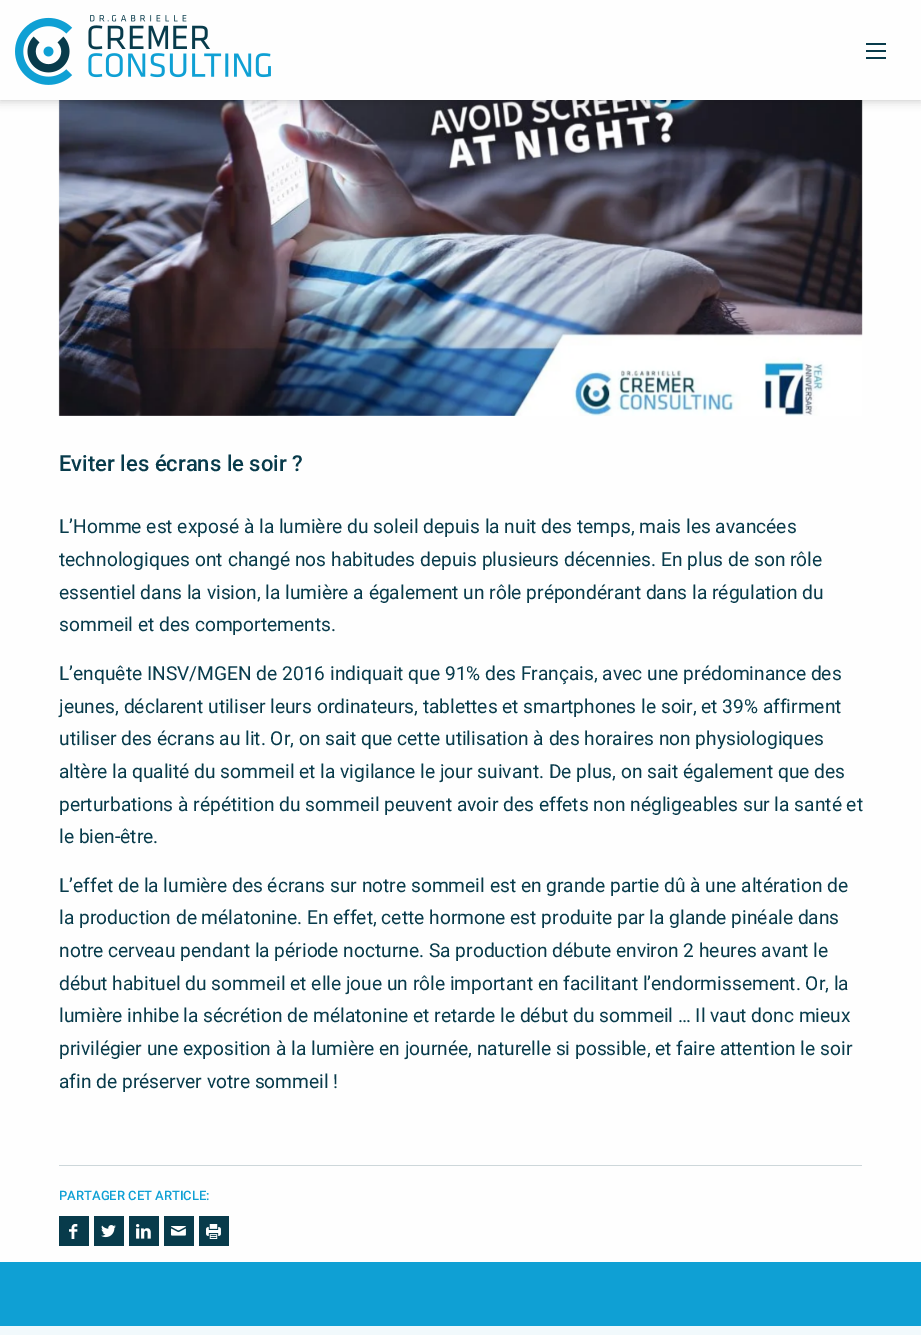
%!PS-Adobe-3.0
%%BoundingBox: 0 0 921 1335
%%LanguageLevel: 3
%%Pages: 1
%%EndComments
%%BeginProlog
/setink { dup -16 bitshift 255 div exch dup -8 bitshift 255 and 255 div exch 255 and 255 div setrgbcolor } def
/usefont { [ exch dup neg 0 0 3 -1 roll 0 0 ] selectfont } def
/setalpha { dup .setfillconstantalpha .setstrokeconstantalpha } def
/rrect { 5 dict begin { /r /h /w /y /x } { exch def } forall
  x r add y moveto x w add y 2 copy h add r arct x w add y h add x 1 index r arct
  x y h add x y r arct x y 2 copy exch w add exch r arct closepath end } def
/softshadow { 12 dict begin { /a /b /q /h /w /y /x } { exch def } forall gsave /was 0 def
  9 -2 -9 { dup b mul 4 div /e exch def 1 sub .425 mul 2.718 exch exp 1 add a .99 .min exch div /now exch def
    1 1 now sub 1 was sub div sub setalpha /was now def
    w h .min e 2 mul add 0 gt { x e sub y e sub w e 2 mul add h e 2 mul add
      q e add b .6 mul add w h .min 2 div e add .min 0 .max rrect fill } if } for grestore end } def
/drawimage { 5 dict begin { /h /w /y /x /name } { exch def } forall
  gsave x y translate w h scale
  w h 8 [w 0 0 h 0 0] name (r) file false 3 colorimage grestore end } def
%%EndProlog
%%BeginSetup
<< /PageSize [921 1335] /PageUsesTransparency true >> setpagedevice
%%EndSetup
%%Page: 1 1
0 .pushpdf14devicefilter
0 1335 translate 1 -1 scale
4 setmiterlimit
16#0FA0D4 setink
0 0 921 1335 rectfill
16#FEFEFE setink
0 100 921 1162 rectfill
(img2.raw) 58 100 805 316 drawimage
16#0A0A0A setink
0 0 921 100 0 5 0.25 softshadow
16#FEFEFE setink
0 0 921 100 rectfill
(img1.raw) 15 15 256 70 drawimage
[
    [866 57 20 2 16#083B4B]
    [866 50 20 2 16#083B4B]
    [866 43 20 2 16#083B4B]
] { aload pop setink rectfill } forall
/Roboto-Medium 22 usefont
59 471 moveto (Eviter les écrans le soir ?) show
/Roboto-Regular 19.2 usefont
[
    [(L’Homme est exposé à la lumière du soleil depuis la nuit des temps, mais les avancées) 59 533]
    [(technologiques ont changé nos habitudes depuis plusieurs décennies. En plus de son rôle) 59 566]
    [(essentiel dans la vision, la lumière a également un rôle prépondérant dans la régulation du) 59 599]
    [(sommeil et des comportements.) 59 631]
    [(L’enquête INSV/MGEN de 2016 indiquait que 91% des Français, avec une prédominance des) 59 680]
    [(jeunes, déclarent utiliser leurs ordinateurs, tablettes et smartphones le soir, et 39% affirment) 59 713]
    [(utiliser des écrans au lit. Or, on sait que cette utilisation à des horaires non physiologiques) 59 745]
    [(altère la qualité du sommeil et la vigilance le jour suivant. De plus, on sait également que des) 59 778]
    [(perturbations à répétition du sommeil peuvent avoir des effets non négligeables sur la santé et) 59 811]
    [(le bien-être.) 59 843]
    [(L’effet de la lumière des écrans sur notre sommeil est en grande partie dû à une altération de) 59 892]
    [(la production de mélatonine. En effet, cette hormone est produite par la glande pinéale dans) 59 924]
    [(notre cerveau pendant la période nocturne. Sa production débute environ 2 heures avant le) 59 957]
    [(début habituel du sommeil et elle joue un rôle important en facilitant l’endormissement. Or, la) 59 990]
    [(lumière inhibe la sécrétion de mélatonine et retarde le début du sommeil … Il vaut donc mieux) 59 1022]
    [(privilégier une exposition à la lumière en journée, naturelle si possible, et faire attention le soir) 59 1055]
    [(afin de préserver votre sommeil !) 59 1088]
] { aload pop moveto show } forall
16#CDD7DA setink
59 1165 803 1 rectfill
/Roboto-Medium 13 usefont
16#0FA0D4 setink
59 1200 moveto (PARTAGER CET ARTICLE:) show
16#083B4B setink
59 1216 30 30 rectfill
(img3.raw) 69 1224 9 15 drawimage
94 1216 30 30 rectfill
(img4.raw) 101 1225 15 13 drawimage
129 1216 30 30 rectfill
(img5.raw) 136 1224 15 15 drawimage
164 1216 30 30 rectfill
(img6.raw) 171 1226 15 10 drawimage
199 1216 30 30 rectfill
(img7.raw) 206 1224 15 15 drawimage
16#F1F9FC setink
0 1326 921 9 rectfill
.poppdf14devicefilter showpage
%%EOF
